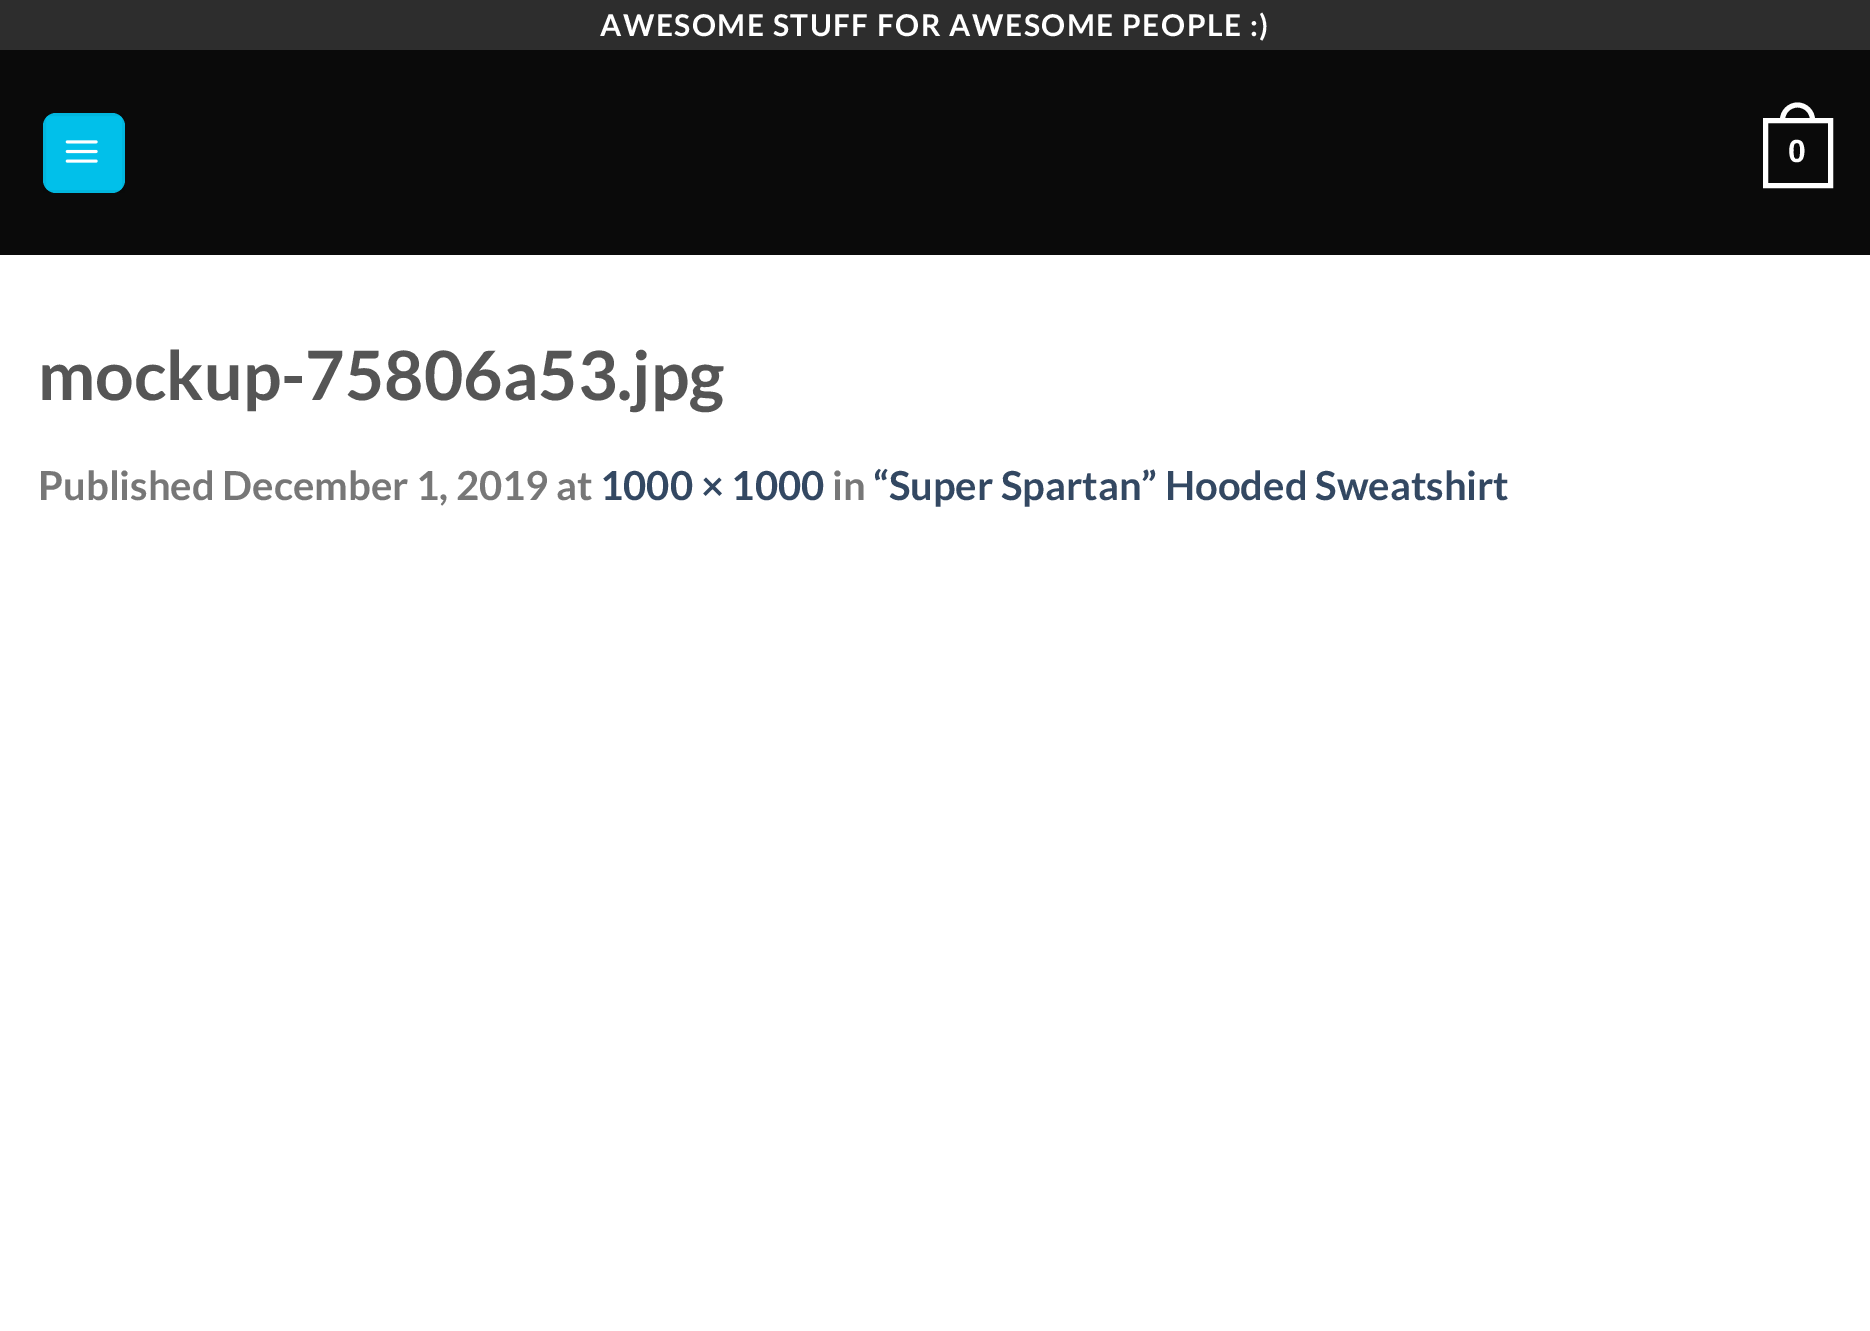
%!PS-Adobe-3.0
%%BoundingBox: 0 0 1870 1331
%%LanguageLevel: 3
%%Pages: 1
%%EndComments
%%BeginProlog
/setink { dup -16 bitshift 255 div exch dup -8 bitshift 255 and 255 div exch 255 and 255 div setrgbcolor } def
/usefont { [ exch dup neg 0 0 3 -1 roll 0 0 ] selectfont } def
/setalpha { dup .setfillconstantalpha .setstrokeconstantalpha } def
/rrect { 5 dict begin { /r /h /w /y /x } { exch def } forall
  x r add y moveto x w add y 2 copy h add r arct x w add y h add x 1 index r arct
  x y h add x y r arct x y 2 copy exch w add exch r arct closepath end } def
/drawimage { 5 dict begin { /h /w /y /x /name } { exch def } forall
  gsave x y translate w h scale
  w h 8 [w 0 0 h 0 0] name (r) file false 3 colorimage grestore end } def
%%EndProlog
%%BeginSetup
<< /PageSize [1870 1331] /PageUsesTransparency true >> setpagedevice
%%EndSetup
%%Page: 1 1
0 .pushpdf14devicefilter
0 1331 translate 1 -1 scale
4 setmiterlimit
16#FFFFFF setink
0 0 1870 1331 rectfill
16#2D2D2D setink
0 0 1870 50 rectfill
/Lato-Bold 30 usefont
16#FFFFFF setink
600 36 moveto 1.5 0 (AWESOME STUFF FOR AWESOME PEOPLE :\)) ashow
16#0A0A0A setink
0 50 1870 205 rectfill
16#01C0EA setink
43 113 82 80 13 rrect fill
0.05 setalpha
16#000000 setink
3 setlinewidth
44.5 114.5 79 77 rectstroke
1 setalpha
(img1.raw) 65 140 33 23 drawimage
16#FFFFFF setink
5 setlinewidth
1765.5 120.5 65 65 rectstroke
1797.5 102.5 moveto 1807 102.5 1815 110.5 1815 120 curveto 1815 122.5 lineto 1780 122.5 lineto 1780 120 lineto 1780 110.5 1788 102.5 1797.5 102.5 curveto closepath 1797.5 107.5 moveto 1804.5 107.5 1810 113 1810 120 curveto 1810 122.5 lineto 1785 122.5 lineto 1785 120 lineto 1785 113 1790.5 107.5 1797.5 107.5 curveto closepath eofill
/LiberationSans-Bold 32 usefont
1788 162 moveto (0) show
/Lato-Bold 68 usefont
16#555555 setink
38 400 moveto (mockup-75806a53.jpg) show
/Lato-Bold 40 usefont
16#777777 setink
38 500 moveto (Published December 1, 2019 at) show
16#334862 setink
600 500 moveto (1000 × 1000) show
16#777777 setink
832 500 moveto (in) show
16#334862 setink
873 500 moveto (“Super Spartan” Hooded Sweatshirt) show
.poppdf14devicefilter showpage
%%EOF
